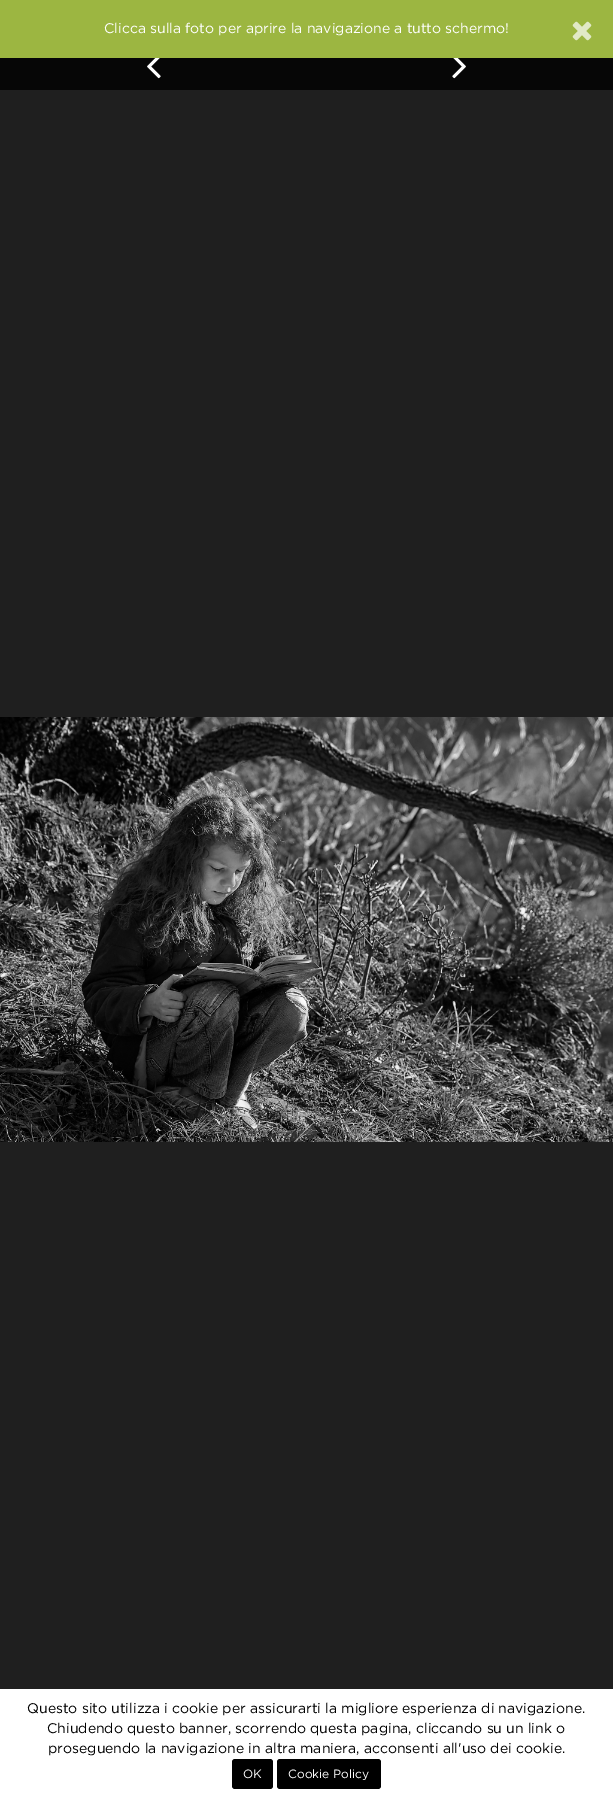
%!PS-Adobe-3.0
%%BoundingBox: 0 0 613 1799
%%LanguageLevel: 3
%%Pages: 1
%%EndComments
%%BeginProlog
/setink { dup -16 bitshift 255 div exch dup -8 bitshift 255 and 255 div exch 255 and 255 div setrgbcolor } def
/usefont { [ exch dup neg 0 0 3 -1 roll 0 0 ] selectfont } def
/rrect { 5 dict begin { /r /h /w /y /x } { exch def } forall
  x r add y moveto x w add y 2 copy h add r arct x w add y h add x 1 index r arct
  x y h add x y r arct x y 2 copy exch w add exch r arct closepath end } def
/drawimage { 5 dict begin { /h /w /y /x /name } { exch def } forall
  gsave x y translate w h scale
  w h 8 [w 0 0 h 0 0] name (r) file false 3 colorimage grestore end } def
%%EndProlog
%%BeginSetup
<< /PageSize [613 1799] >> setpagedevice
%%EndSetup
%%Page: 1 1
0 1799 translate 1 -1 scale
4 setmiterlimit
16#1F1F1F setink
0 0 613 1799 rectfill
16#9CB641 setink
0 0 613 58 rectfill
/Gotham-Regular 14 usefont
16#FFFFFF setink
104 33 moveto (Clicca sulla foto per aprire la navigazione a tutto schermo!) show
(img1.raw) 572 21 20 20 drawimage
16#060606 setink
0 58 613 32 rectfill
(img2.raw) 147 58 14 21 drawimage
(img3.raw) 452 58 14 21 drawimage
(img4.raw) 0 717 613 425 drawimage
16#FFFFFF setink
0 1689 613 110 rectfill
16#000000 setink
[
    [(Questo sito utilizza i cookie per assicurarti la migliore esperienza di navigazione.) 27 1713]
    [(Chiudendo questo banner, scorrendo questa pagina, cliccando su un link o) 47 1733]
    [(proseguendo la navigazione in altra maniera, acconsenti all'uso dei cookie.) 48 1753]
] { aload pop moveto show } forall
232 1759 41 30 3 rrect fill
/Gotham-Regular 12 usefont
16#FFFFFF setink
243 1778 moveto (OK) show
16#000000 setink
277 1759 104 30 3 rrect fill
16#FFFFFF setink
288 1778 moveto (Cookie Policy) show
showpage
%%EOF
